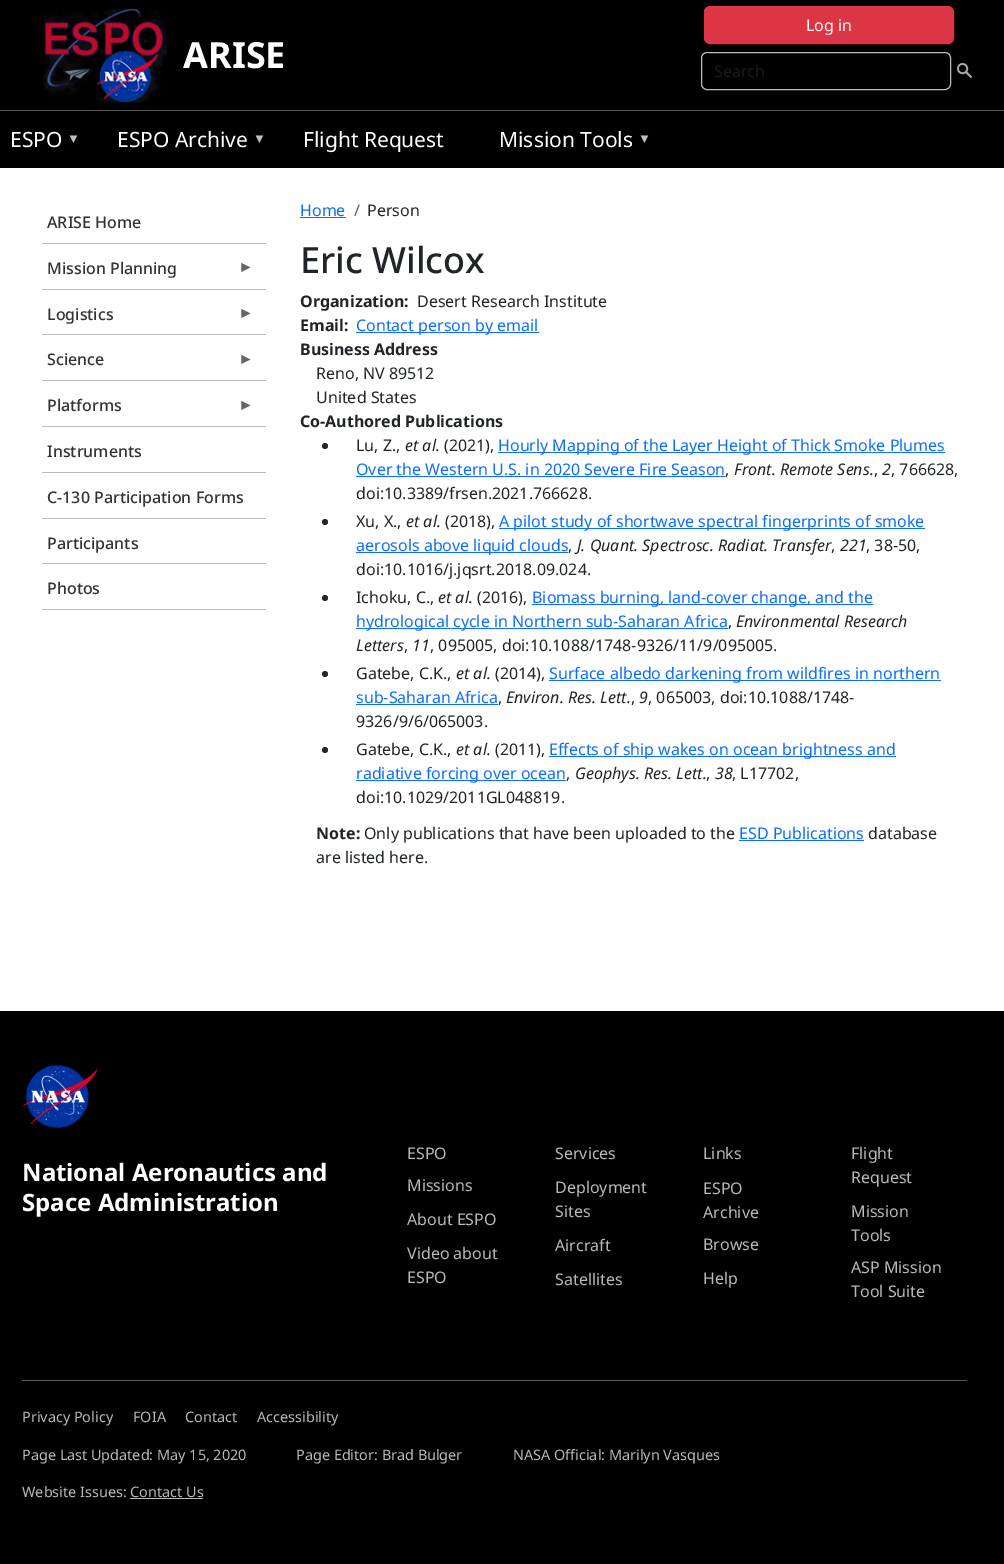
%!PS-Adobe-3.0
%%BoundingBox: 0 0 1004 1564
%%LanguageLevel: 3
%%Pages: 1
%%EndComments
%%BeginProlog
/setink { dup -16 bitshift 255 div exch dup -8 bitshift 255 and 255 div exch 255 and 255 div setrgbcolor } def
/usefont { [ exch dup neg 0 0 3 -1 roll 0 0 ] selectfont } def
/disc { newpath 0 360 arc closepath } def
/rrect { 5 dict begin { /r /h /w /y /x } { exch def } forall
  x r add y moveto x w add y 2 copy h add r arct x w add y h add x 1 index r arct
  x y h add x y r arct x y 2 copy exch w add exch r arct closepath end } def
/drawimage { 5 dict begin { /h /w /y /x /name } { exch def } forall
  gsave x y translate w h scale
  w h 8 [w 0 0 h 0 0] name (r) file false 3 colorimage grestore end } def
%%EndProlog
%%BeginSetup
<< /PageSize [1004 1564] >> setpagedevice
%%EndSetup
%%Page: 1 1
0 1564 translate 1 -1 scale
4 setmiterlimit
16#FFFFFF setink
0 0 1004 1564 rectfill
16#000000 setink
0 0 1004 110 rectfill
16#DC3545 setink
704.5 6.5 249 37 5.5 rrect gsave fill grestore
stroke
/NotoSans-Regular 16 usefont
16#FFFFFF setink
806 31 moveto (Log in) show
(img1.raw) 43 8 124 95 drawimage
/NotoSans-Bold 36 usefont
183 68 moveto (ARISE) show
16#BBBBBB setink
701.5 52.5 249 37 5.5 rrect stroke
/NotoSans-Regular 16 usefont
16#191C1F setink
714 77 moveto (Search) show
(img2.raw) 957 63 15 15 drawimage
16#000000 setink
0 111 1004 57 rectfill
16#555555 setink
0 110 1004 1 rectfill
/NotoSans-Regular 21 usefont
16#FFFFFF setink
10 147 moveto (ESPO) show
/LiberationSans-Regular 13 usefont
16#BFBFBF setink
67 143 moveto (▼) show
/NotoSans-Regular 21 usefont
16#FFFFFF setink
117 147 moveto (ESPO Archive) show
/LiberationSans-Regular 13 usefont
16#BFBFBF setink
253 143 moveto (▼) show
/NotoSans-Regular 21 usefont
16#FFFFFF setink
303 147 moveto (Flight Request) show
499 147 moveto (Mission Tools) show
/LiberationSans-Regular 13 usefont
16#BFBFBF setink
638 143 moveto (▼) show
16#BBBBBB setink
42 243 224 1 rectfill
/NotoSans-Medium 16 usefont
16#333333 setink
47 228 moveto (ARISE Home) show
16#BBBBBB setink
42 289 224 1 rectfill
16#333333 setink
47 274 moveto (Mission Planning) show
/LiberationSans-Regular 16 usefont
16#666666 setink
238 272 moveto (►) show
16#BBBBBB setink
42 334 224 1 rectfill
/NotoSans-Medium 16 usefont
16#333333 setink
47 320 moveto (Logistics) show
/LiberationSans-Regular 16 usefont
16#666666 setink
238 318 moveto (►) show
16#BBBBBB setink
42 380 224 1 rectfill
/NotoSans-Medium 16 usefont
16#333333 setink
47 365 moveto (Science) show
/LiberationSans-Regular 16 usefont
16#666666 setink
238 364 moveto (►) show
16#BBBBBB setink
42 426 224 1 rectfill
/NotoSans-Medium 16 usefont
16#333333 setink
47 411 moveto (Platforms) show
/LiberationSans-Regular 16 usefont
16#666666 setink
238 410 moveto (►) show
16#BBBBBB setink
42 472 224 1 rectfill
/NotoSans-Medium 16 usefont
16#333333 setink
47 457 moveto (Instruments) show
16#BBBBBB setink
42 518 224 1 rectfill
16#333333 setink
47 503 moveto (C-130 Participation Forms) show
16#BBBBBB setink
42 563 224 1 rectfill
16#333333 setink
47 549 moveto (Participants) show
16#BBBBBB setink
42 609 224 1 rectfill
16#333333 setink
47 594 moveto (Photos) show
/NotoSans-Regular 16 usefont
16#0D6EFD setink
300 216 moveto (Home) show
300 217 46 1 rectfill
16#595C5F setink
354 216 moveto (/) show
16#212529 setink
367 216 moveto (Person) show
/NotoSans-Medium 36 usefont
300 273 moveto (Eric Wilcox) show
/NotoSans-Bold 16 usefont
300 307 moveto (Organization:) show
/NotoSans-Regular 16 usefont
417 307 moveto (Desert Research Institute) show
/NotoSans-Bold 16 usefont
300 331 moveto (Email:) show
16#0D6EFD setink
356 332 183 1 rectfill
/NotoSans-Regular 16 usefont
356 331 moveto (Contact person by email) show
/NotoSans-Bold 16 usefont
16#212529 setink
300 355 moveto (Business Address) show
/NotoSans-Regular 16 usefont
316 379 moveto (Reno, NV 89512) show
316 403 moveto (United States) show
/NotoSans-Bold 16 usefont
300 427 moveto (Co-Authored Publications) show
325 446 3 disc fill
/NotoSans-Regular 16 usefont
356 451 moveto (Lu, Z.,) show
/NotoSans-Italic 16 usefont
405 451 moveto (et al.) show
/NotoSans-Regular 16 usefont
444 451 moveto (\(2021\),) show
16#0D6EFD setink
498 452 447 1 rectfill
498 451 moveto (Hourly Mapping of the Layer Height of Thick Smoke Plumes) show
356 475 moveto (Over the Western U.S. in 2020 Severe Fire Season) show
356 476 369 1 rectfill
16#212529 setink
725 475 moveto (,) show
/NotoSans-Italic 16 usefont
734 475 moveto (Front. Remote Sens.) show
/NotoSans-Regular 16 usefont
874 475 moveto (,) show
/NotoSans-Italic 16 usefont
882 475 moveto (2) show
/NotoSans-Regular 16 usefont
891 475 moveto (, 766628,) show
356 499 moveto (doi:10.3389/frsen.2021.766628.) show
325 522 3 disc fill
356 527 moveto (Xu, X.,) show
/NotoSans-Italic 16 usefont
406 527 moveto (et al.) show
/NotoSans-Regular 16 usefont
445 527 moveto (\(2018\),) show
16#0D6EFD setink
499 528 426 1 rectfill
499 527 moveto (A pilot study of shortwave spectral fingerprints of smoke) show
356 552 212 1 rectfill
356 551 moveto (aerosols above liquid clouds) show
16#212529 setink
568 551 moveto (,) show
/NotoSans-Italic 16 usefont
577 551 moveto (J. Quant. Spectrosc. Radiat. Transfer) show
/NotoSans-Regular 16 usefont
831 551 moveto (,) show
/NotoSans-Italic 16 usefont
840 551 moveto (221) show
/NotoSans-Regular 16 usefont
866 551 moveto (, 38-50,) show
356 575 moveto (doi:10.1016/j.jqsrt.2018.09.024.) show
325 598 3 disc fill
356 603 moveto (Ichoku, C.,) show
/NotoSans-Italic 16 usefont
438 603 moveto (et al.) show
/NotoSans-Regular 16 usefont
477 603 moveto (\(2016\),) show
16#0D6EFD setink
532 604 341 1 rectfill
532 603 moveto (Biomass burning, land-cover change, and the) show
356 628 372 1 rectfill
356 627 moveto (hydrological cycle in Northern sub-Saharan Africa) show
16#212529 setink
728 627 moveto (,) show
/NotoSans-Italic 16 usefont
[
    [(Environmental Research) 736 627]
    [(Letters) 356 651]
    [(11) 412 651]
] { aload pop moveto show } forall
/NotoSans-Regular 16 usefont
430 651 moveto (, 095005, doi:10.1088/1748-9326/11/9/095005.) show
404 651 moveto (,) show
325 674 3 disc fill
356 679 moveto (Gatebe, C.K.,) show
/NotoSans-Italic 16 usefont
456 679 moveto (et al.) show
/NotoSans-Regular 16 usefont
495 679 moveto (\(2014\),) show
16#0D6EFD setink
549 680 392 1 rectfill
549 679 moveto (Surface albedo darkening from wildfires in northern) show
356 703 moveto (sub-Saharan Africa) show
356 704 142 1 rectfill
16#212529 setink
498 703 moveto (,) show
/NotoSans-Italic 16 usefont
506 703 moveto (Environ. Res. Lett.) show
/NotoSans-Regular 16 usefont
631 703 moveto (,) show
/NotoSans-Italic 16 usefont
639 703 moveto (9) show
/NotoSans-Regular 16 usefont
648 703 moveto (, 065003, doi:10.1088/1748-) show
356 727 moveto (9326/9/6/065003.) show
325 750 3 disc fill
356 755 moveto (Gatebe, C.K.,) show
/NotoSans-Italic 16 usefont
456 755 moveto (et al.) show
/NotoSans-Regular 16 usefont
495 755 moveto (\(2011\),) show
16#0D6EFD setink
549 756 347 1 rectfill
549 755 moveto (Effects of ship wakes on ocean brightness and) show
356 780 210 1 rectfill
356 779 moveto (radiative forcing over ocean) show
16#212529 setink
566 779 moveto (,) show
/NotoSans-Italic 16 usefont
575 779 moveto (Geophys. Res. Lett.) show
/NotoSans-Regular 16 usefont
706 779 moveto (,) show
/NotoSans-Italic 16 usefont
715 779 moveto (38) show
/NotoSans-Regular 16 usefont
732 779 moveto (, L17702,) show
356 803 moveto (doi:10.1029/2011GL048819.) show
/NotoSans-Bold 16 usefont
316 839 moveto (Note:) show
/NotoSans-Regular 16 usefont
364 839 moveto (Only publications that have been uploaded to the) show
16#0D6EFD setink
739 839 moveto (ESD Publications) show
739 840 125 1 rectfill
16#212529 setink
868 839 moveto (database) show
316 863 moveto (are listed here.) show
16#000000 setink
0 1011 1004 553 rectfill
(img3.raw) 22 1065 76 63 drawimage
/NotoSans-Bold 24 usefont
16#FFFFFF setink
22 1181 moveto (National Aeronautics and) show
22 1211 moveto (Space Administration) show
/NotoSans-Regular 16 usefont
16#B9B9BB setink
[
    [(Services) 555 1159]
    [(Links) 703 1159]
    [(Missions) 407 1191]
    [(Deployment) 555 1193]
    [(Sites) 555 1217]
    [(About ESPO) 407 1225]
    [(Video about) 407 1259]
    [(ESPO) 407 1283]
    [(Aircraft) 555 1251]
    [(Satellites) 555 1285]
    [(ESPO) 407 1159]
    [(Flight) 851 1159]
    [(Request) 851 1183]
    [(ESPO) 703 1194]
    [(Archive) 703 1218]
    [(Browse) 703 1250]
    [(Help) 703 1284]
    [(Mission) 851 1217]
    [(Tools) 851 1241]
    [(ASP Mission) 851 1273]
    [(Tool Suite) 851 1297]
] { aload pop moveto show } forall
16#58585B setink
22 1380 945 1 rectfill
/NotoSans-Regular 14.4 usefont
16#B9B9BB setink
[
    [(Privacy Policy) 22 1422]
    [(FOIA) 133 1422]
    [(Contact) 185 1422]
    [(Accessibility) 257 1422]
    [(Page Last Updated: May 15, 2020) 22 1460]
    [(Page Editor: Brad Bulger) 296 1460]
    [(NASA Official: Marilyn Vasques) 513 1460]
    [(Website Issues: Contact Us) 22 1497]
] { aload pop moveto show } forall
130 1498 73 1 rectfill
showpage
%%EOF
